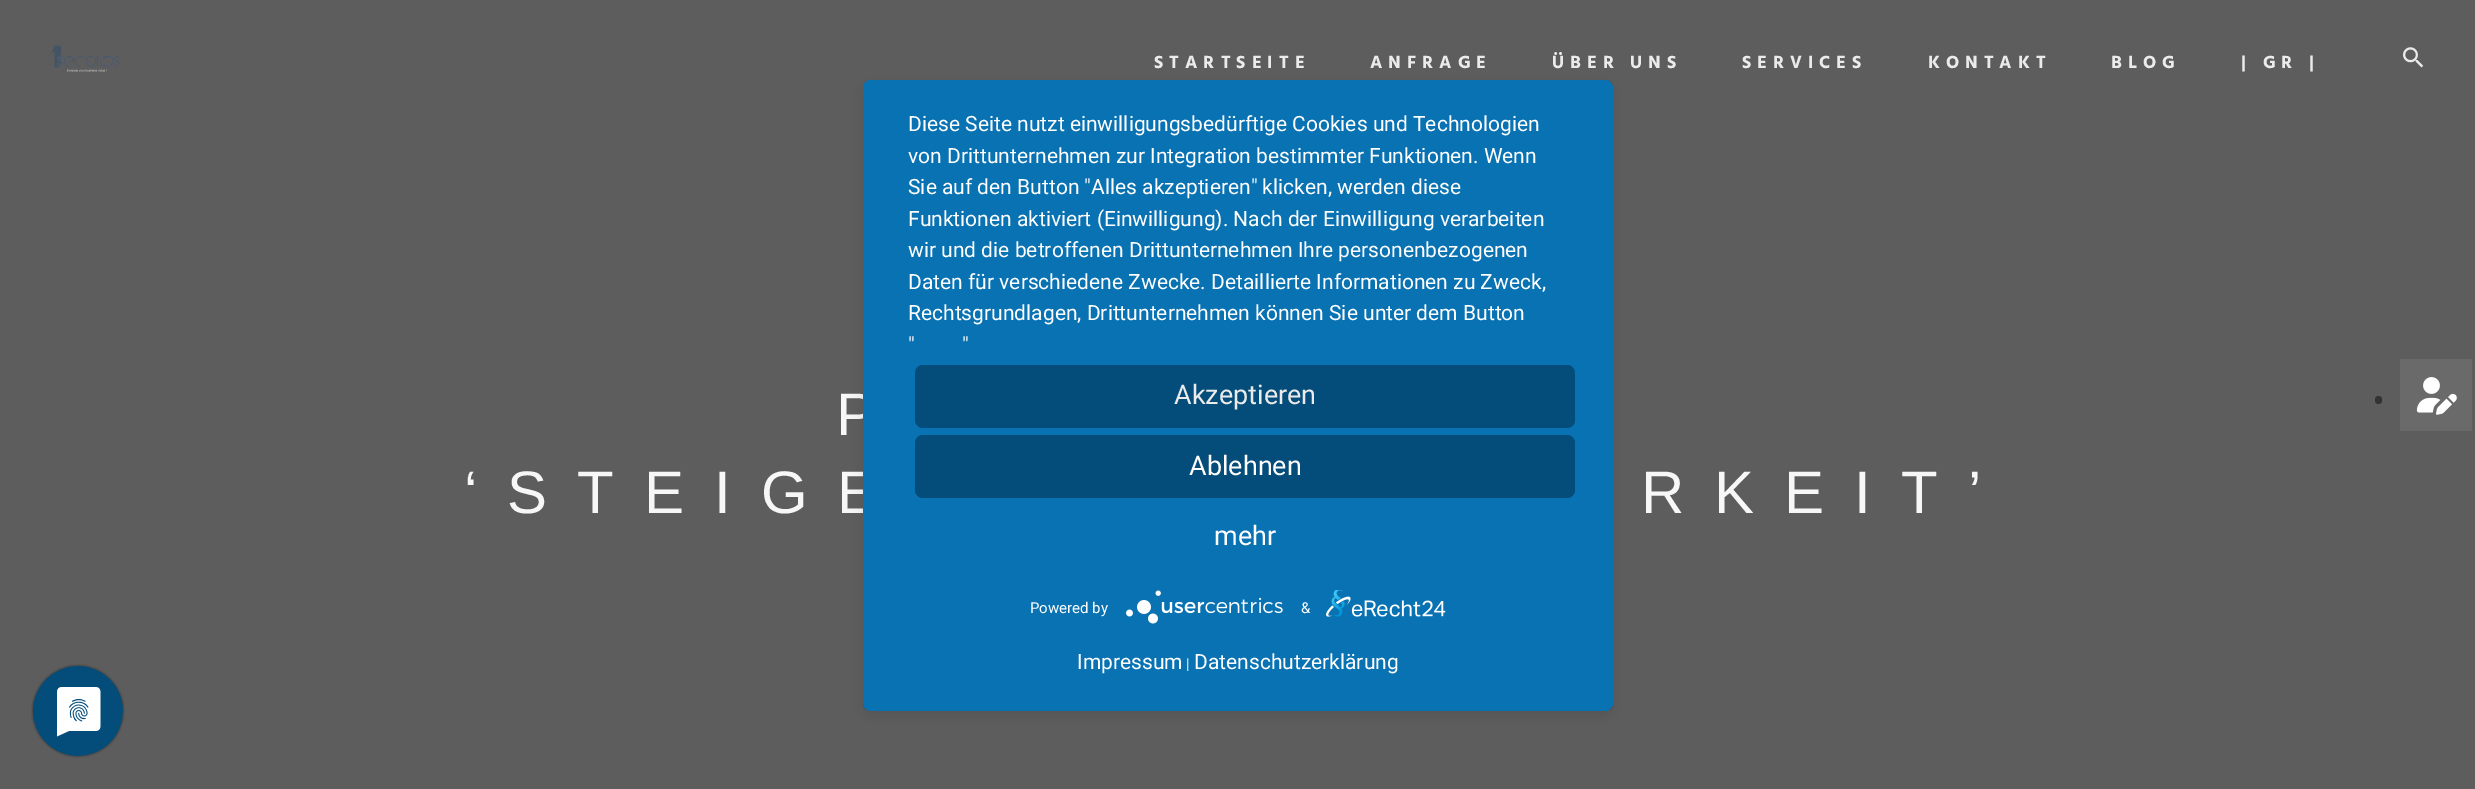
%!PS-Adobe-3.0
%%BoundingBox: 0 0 2475 789
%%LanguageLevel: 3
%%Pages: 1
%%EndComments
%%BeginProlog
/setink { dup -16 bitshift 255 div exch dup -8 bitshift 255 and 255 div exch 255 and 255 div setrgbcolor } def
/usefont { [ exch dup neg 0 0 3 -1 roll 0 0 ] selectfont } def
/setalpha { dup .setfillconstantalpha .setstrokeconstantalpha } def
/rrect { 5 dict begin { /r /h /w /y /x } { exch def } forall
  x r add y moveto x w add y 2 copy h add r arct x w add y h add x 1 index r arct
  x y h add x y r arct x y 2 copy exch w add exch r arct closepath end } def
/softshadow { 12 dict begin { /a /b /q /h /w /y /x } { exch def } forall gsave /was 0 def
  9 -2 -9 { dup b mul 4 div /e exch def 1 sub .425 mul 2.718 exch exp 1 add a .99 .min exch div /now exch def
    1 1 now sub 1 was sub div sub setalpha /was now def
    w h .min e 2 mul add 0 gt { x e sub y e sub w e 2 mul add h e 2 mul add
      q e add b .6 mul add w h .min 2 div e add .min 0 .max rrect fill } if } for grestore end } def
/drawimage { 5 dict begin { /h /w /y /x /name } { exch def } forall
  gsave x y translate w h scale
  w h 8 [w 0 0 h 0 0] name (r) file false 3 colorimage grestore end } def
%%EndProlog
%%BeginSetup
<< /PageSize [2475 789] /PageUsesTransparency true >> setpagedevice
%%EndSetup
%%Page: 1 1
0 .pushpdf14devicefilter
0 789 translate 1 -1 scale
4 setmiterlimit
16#5D5D5D setink
0 0 2475 789 rectfill
(img1.raw) 46 45 74 27 drawimage
/Hind-Bold 18 usefont
16#EBEBEB setink
1154 68 moveto 6 0 (STARTSEITE) ashow
1370 68 moveto 6 0 (ANFRAGE) ashow
1552 68 moveto 6 0 (ÜBER UNS) ashow
1742 68 moveto 6 0 (SERVICES) ashow
1928 68 moveto 6 0 (KONTAKT) ashow
2111 68 moveto 6 0 (BLOG) ashow
2241 68 moveto 6 0 (| GR |) ashow
(img2.raw) 2403 47 21 21 drawimage
/LiberationSans-Regular 60 usefont
16#F7F7F7 setink
836 435 moveto 30 0 (P) ashow
464 513 moveto 30 0 (‘STEIGE) ashow
1641 513 moveto 30 0 (RKEIT’) ashow
16#000000 setink
863 84 750 632 8 7.5 0.1 softshadow
gsave
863 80 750 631 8 rrect clip newpath
863 89 750 631 0 27 0.3 softshadow
grestore
16#0972B3 setink
863 80 750 631 8 rrect fill
/Roboto-Regular 21 usefont
16#FFFFFF setink
[
    [(Diese Seite nutzt einwilligungsbedürftige Cookies und Technologien) 908 131]
    [(von Drittunternehmen zur Integration bestimmter Funktionen. Wenn) 908 163]
    [(Sie auf den Button "Alles akzeptieren" klicken, werden diese) 908 194]
    [(Funktionen aktiviert \(Einwilligung\). Nach der Einwilligung verarbeiten) 908 226]
    [(wir und die betroffenen Drittunternehmen Ihre personenbezogenen) 908 257]
    [(Daten für verschiedene Zwecke. Detaillierte Informationen zu Zweck,) 908 289]
    [(Rechtsgrundlagen, Drittunternehmen können Sie unter dem Button) 908 320]
    [(") 908 352]
    [(") 962 352]
] { aload pop moveto show } forall
16#044D7A setink
915 365 660 63 8 rrect fill
/Roboto-Regular 27 usefont
16#EBEBEB setink
1174 404 moveto (Akzeptieren) show
16#044D7A setink
915 435 660 63 8 rrect fill
16#FFFFFF setink
1189 475 moveto (Ablehnen) show
1214 545 moveto (mehr) show
/Roboto-Regular 15 usefont
1030 613 moveto (Powered by) show
(img3.raw) 1126 590 157 34 drawimage
1301 613 moveto (&) show
(img4.raw) 1326 590 120 27 drawimage
/Roboto-Regular 21 usefont
1077 669 moveto (Impressum) show
/Roboto-Regular 15 usefont
1186 669 moveto (|) show
/Roboto-Regular 21 usefont
1194 669 moveto (Datenschutzerklärung) show
(img5.raw) 31 664 94 94 drawimage
16#333333 setink
2375 396 7 8 3.5 rrect fill
16#6A6A6A setink
2400 359 72 72 rectfill
(img6.raw) 2416 377 41 38 drawimage
.poppdf14devicefilter showpage
%%EOF
